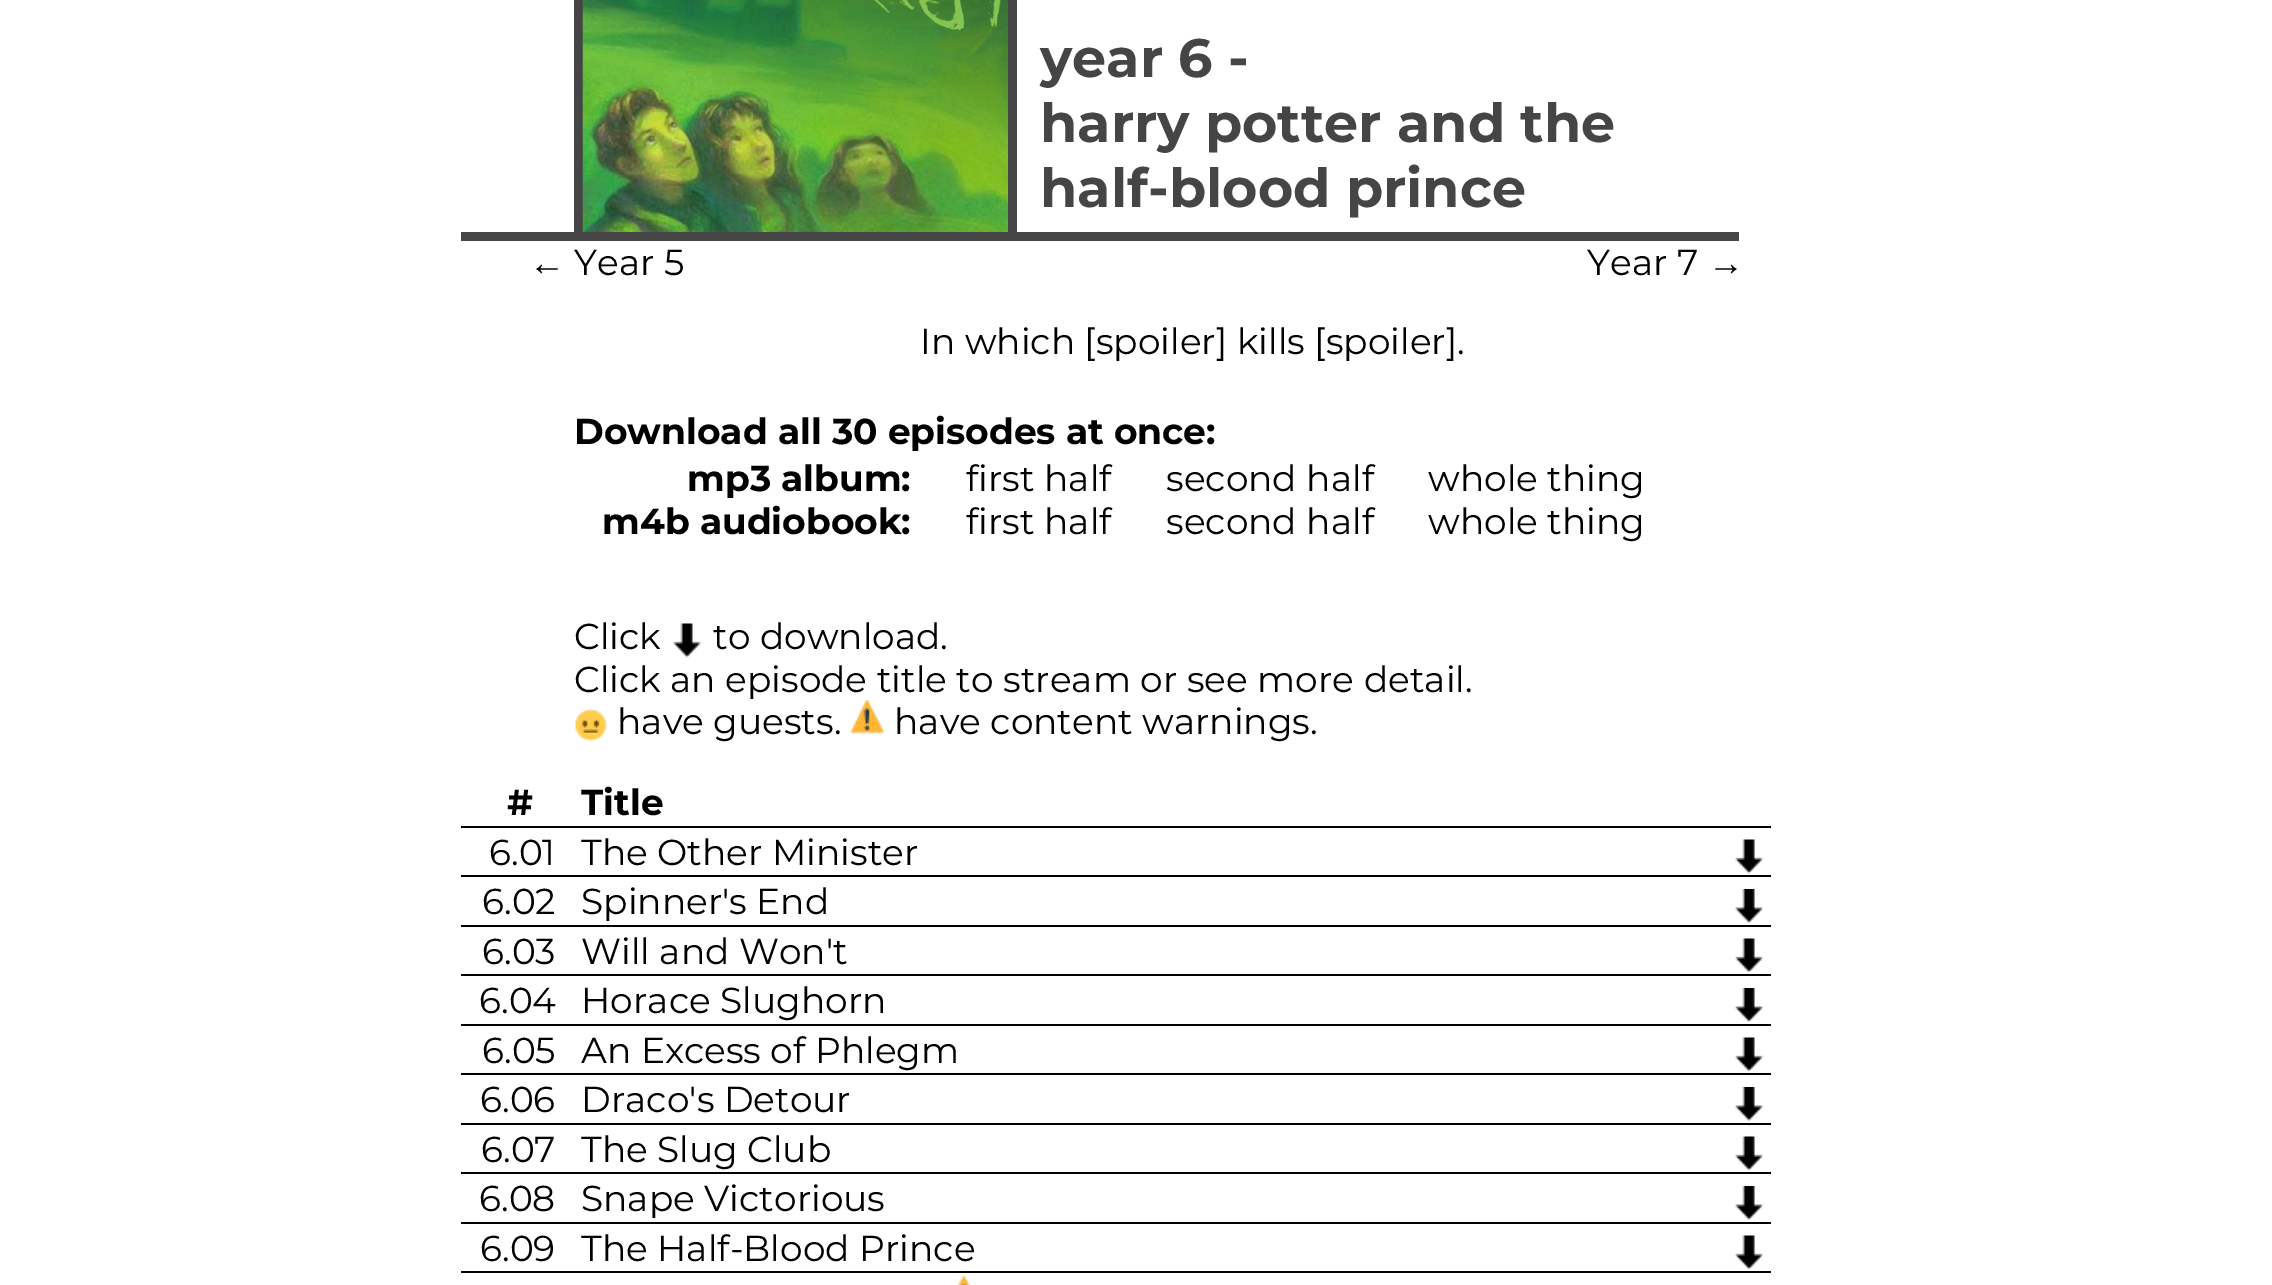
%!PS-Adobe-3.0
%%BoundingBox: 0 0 2272 1285
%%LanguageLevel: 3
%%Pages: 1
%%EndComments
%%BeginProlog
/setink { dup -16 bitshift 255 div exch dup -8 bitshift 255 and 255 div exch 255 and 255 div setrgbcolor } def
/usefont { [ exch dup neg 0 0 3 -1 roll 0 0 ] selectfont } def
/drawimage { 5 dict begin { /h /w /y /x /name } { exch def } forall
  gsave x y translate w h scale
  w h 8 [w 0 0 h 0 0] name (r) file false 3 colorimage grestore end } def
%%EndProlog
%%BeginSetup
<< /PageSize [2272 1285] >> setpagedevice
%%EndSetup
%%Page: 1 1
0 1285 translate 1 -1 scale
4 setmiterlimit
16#FFFFFF setink
0 0 2272 1285 rectfill
[
    [461 232 1278 9 16#454545]
    [1008 0 9 232 16#454545]
    [574 0 9 232 16#454545]
] { aload pop setink rectfill } forall
(img1.raw) 582 0 426 232 drawimage
/Montserrat-Bold 54 usefont
[
    [(year 6 -) 1040 77]
    [(harry potter and the) 1040 142]
    [(half-blood prince) 1040 207]
] { aload pop moveto show } forall
/LiberationSans-Regular 36 usefont
16#000000 setink
529 275 moveto (←) show
/Montserrat-Regular 36 usefont
574 275 moveto (Year 5) show
1587 275 moveto (Year 7) show
/LiberationSans-Regular 36 usefont
1708 275 moveto (→) show
/Montserrat-Regular 36 usefont
920 354 moveto (In which [spoiler] kills [spoiler].) show
/Montserrat-Bold 36 usefont
574 444 moveto (Download all 30 episodes at once:) show
687 491 moveto (mp3 album:) show
/Montserrat-Regular 36 usefont
[
    [(first half) 966 491]
    [(second half) 1166 491]
    [(whole thing) 1428 491]
] { aload pop moveto show } forall
/Montserrat-Bold 36 usefont
602 534 moveto (m4b audiobook:) show
/Montserrat-Regular 36 usefont
[
    [(first half) 966 534]
    [(second half) 1166 534]
    [(whole thing) 1428 534]
    [(Click) 574 649]
] { aload pop moveto show } forall
(img2.raw) 673 623 29 35 drawimage
713 649 moveto (to download.) show
574 692 moveto (Click an episode title to stream or see more detail.) show
(img3.raw) 574 709 33 33 drawimage
617 734 moveto (have guests.) show
(img4.raw) 850 700 35 34 drawimage
894 734 moveto (have content warnings.) show
461 826 1310 2 rectfill
/Montserrat-Bold 36 usefont
507 815 moveto (#) show
581 815 moveto (Title) show
461 875 1310 2 rectfill
/Montserrat-Regular 36 usefont
489 865 moveto (6.01) show
581 865 moveto (The Other Minister) show
(img5.raw) 1735 839 29 35 drawimage
461 925 1310 2 rectfill
482 914 moveto (6.02) show
581 914 moveto (Spinner's End) show
(img6.raw) 1735 889 29 34 drawimage
461 974 1310 2 rectfill
482 964 moveto (6.03) show
581 964 moveto (Will and Won't) show
(img5.raw) 1735 938 29 35 drawimage
461 1024 1310 2 rectfill
479 1013 moveto (6.04) show
581 1013 moveto (Horace Slughorn) show
(img6.raw) 1735 988 29 34 drawimage
461 1073 1310 2 rectfill
482 1063 moveto (6.05) show
581 1063 moveto (An Excess of Phlegm) show
(img5.raw) 1735 1037 29 35 drawimage
461 1123 1310 2 rectfill
480 1112 moveto (6.06) show
581 1112 moveto (Draco's Detour) show
(img6.raw) 1735 1087 29 34 drawimage
461 1172 1310 2 rectfill
481 1162 moveto (6.07) show
581 1162 moveto (The Slug Club) show
(img5.raw) 1735 1136 29 35 drawimage
461 1222 1310 2 rectfill
479 1211 moveto (6.08) show
581 1211 moveto (Snape Victorious) show
(img6.raw) 1735 1186 29 34 drawimage
461 1271 1310 2 rectfill
480 1261 moveto (6.09) show
581 1261 moveto (The Half-Blood Prince) show
(img5.raw) 1735 1235 29 35 drawimage
(img7.raw) 957 1276 13 9 drawimage
showpage
%%EOF
